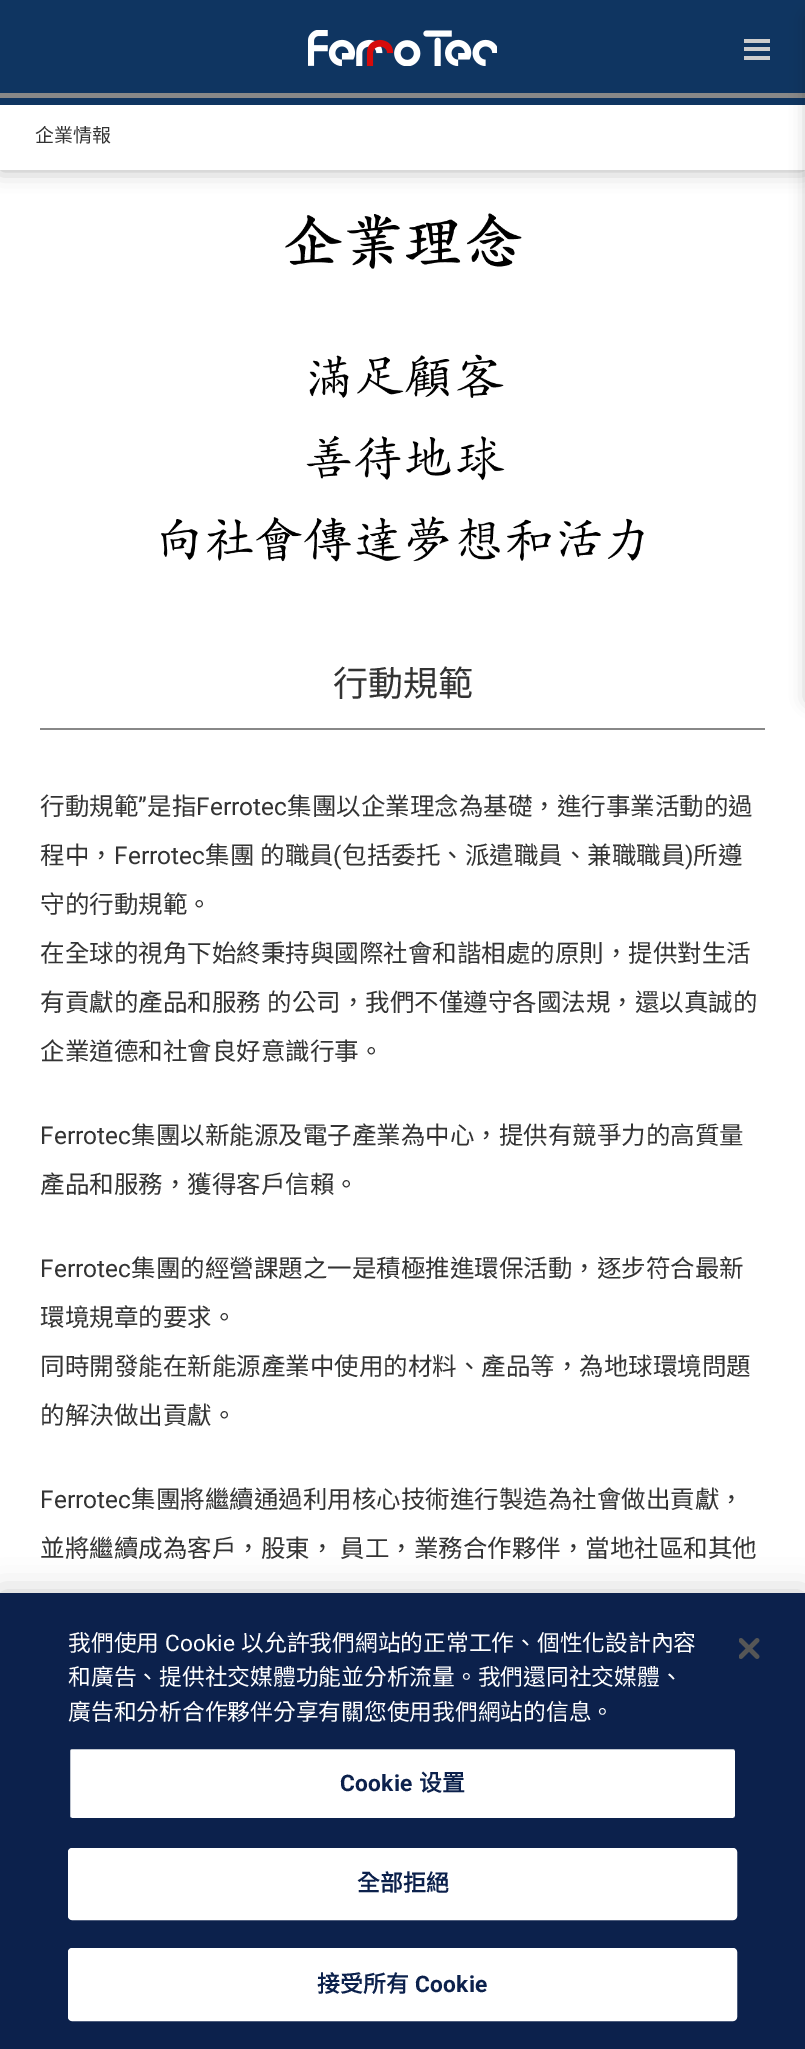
%!PS-Adobe-3.0
%%BoundingBox: 0 0 805 2049
%%LanguageLevel: 3
%%Pages: 1
%%EndComments
%%BeginProlog
/setink { dup -16 bitshift 255 div exch dup -8 bitshift 255 and 255 div exch 255 and 255 div setrgbcolor } def
/usefont { [ exch dup neg 0 0 3 -1 roll 0 0 ] selectfont } def
/setalpha { dup .setfillconstantalpha .setstrokeconstantalpha } def
/rrect { 5 dict begin { /r /h /w /y /x } { exch def } forall
  x r add y moveto x w add y 2 copy h add r arct x w add y h add x 1 index r arct
  x y h add x y r arct x y 2 copy exch w add exch r arct closepath end } def
/softshadow { 12 dict begin { /a /b /q /h /w /y /x } { exch def } forall gsave /was 0 def
  9 -2 -9 { dup b mul 4 div /e exch def 1 sub .425 mul 2.718 exch exp 1 add a .99 .min exch div /now exch def
    1 1 now sub 1 was sub div sub setalpha /was now def
    w h .min e 2 mul add 0 gt { x e sub y e sub w e 2 mul add h e 2 mul add
      q e add b .6 mul add w h .min 2 div e add .min 0 .max rrect fill } if } for grestore end } def
/drawimage { 5 dict begin { /h /w /y /x /name } { exch def } forall
  gsave x y translate w h scale
  w h 8 [w 0 0 h 0 0] name (r) file false 3 colorimage grestore end } def
%%EndProlog
%%BeginSetup
<< /PageSize [805 2049] /PageUsesTransparency true >> setpagedevice
%%EndSetup
%%Page: 1 1
0 .pushpdf14devicefilter
0 2049 translate 1 -1 scale
4 setmiterlimit
16#FFFFFF setink
0 0 805 2049 rectfill
16#000000 setink
0 105 805 65 0 10.5 0.3 softshadow
16#0F3561 setink
0 0 805 105 rectfill
(img1.raw) 308 30 189 36 drawimage
[
    [744 39 26 4 16#CDCDCD]
    [0 93 805 5 16#888888]
    [0 105 805 65 16#FFFFFF]
] { aload pop setink rectfill } forall
16#000000 setink
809 18 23 682 0 9 0.3 softshadow
16#CDCDCD setink
744 47 26 4 rectfill
744 56 26 4 rectfill
/NotoSansCJKTC-Regular 19 usefont
16#333333 setink
35 142 moveto (企業情報) show
(img2.raw) 161 213 483 349 drawimage
16#888888 setink
40 728 725 2 rectfill
/NotoSansCJKTC-Regular 35 usefont
16#333333 setink
333 696 moveto (行動規範) show
/NotoSansCJKTC-Regular 24.5 usefont
40 815 moveto (行動規範) show
/Roboto-Regular 24.5 usefont
138 815 moveto (”) show
/NotoSansCJKTC-Regular 24.5 usefont
147 815 moveto (是指) show
/Roboto-Regular 24.5 usefont
196 815 moveto (Ferrotec) show
/NotoSansCJKTC-Regular 24.5 usefont
287 815 moveto (集團以企業理念為基礎，進行事業活動的過) show
40 864 moveto (程中，) show
/Roboto-Regular 24.5 usefont
114 864 moveto (Ferrotec) show
/NotoSansCJKTC-Regular 24.5 usefont
205 864 moveto (集團) show
260 864 moveto (的職員) show
/Roboto-Regular 24.5 usefont
333 864 moveto (\() show
/NotoSansCJKTC-Regular 24.5 usefont
342 864 moveto (包括委托、派遣職員、兼職職員) show
/Roboto-Regular 24.5 usefont
685 864 moveto (\)) show
/NotoSansCJKTC-Regular 24.5 usefont
[
    [(所遵) 693 864]
    [(守的行動規範。) 40 913]
    [(在全球的視角下始終秉持與國際社會和諧相處的原則，提供對生活) 40 962]
    [(有貢獻的產品和服務) 40 1011]
    [(的公司，我們不僅遵守各國法規，還以真誠的) 267 1011]
    [(企業道德和社會良好意識行事。) 40 1060]
] { aload pop moveto show } forall
/Roboto-Regular 24.5 usefont
40 1144 moveto (Ferrotec) show
/NotoSansCJKTC-Regular 24.5 usefont
131 1144 moveto (集團以新能源及電子產業為中心，提供有競爭力的高質量) show
40 1193 moveto (產品和服務，獲得客戶信賴。) show
/Roboto-Regular 24.5 usefont
40 1277 moveto (Ferrotec) show
/NotoSansCJKTC-Regular 24.5 usefont
[
    [(集團的經營課題之一是積極推進環保活動，逐步符合最新) 131 1277]
    [(環境規章的要求。) 40 1326]
    [(同時開發能在新能源產業中使用的材料、產品等，為地球環境問題) 40 1375]
    [(的解決做出貢獻。) 40 1424]
] { aload pop moveto show } forall
/Roboto-Regular 24.5 usefont
40 1508 moveto (Ferrotec) show
/NotoSansCJKTC-Regular 24.5 usefont
[
    [(集團將繼續通過利用核心技術進行製造為社會做出貢獻，) 131 1508]
    [(並將繼續成為客戶，股東，) 40 1557]
    [(員工，業務合作夥伴，當地社區和其他) 340 1557]
] { aload pop moveto show } forall
16#000000 setink
0 1593 805 456 0 16 0.2 softshadow
16#0C214C setink
0 1593 805 456 rectfill
/NotoSansCJKTC-Regular 22.75 usefont
16#FFFFFF setink
68 1651 moveto (我們使用) show
/Roboto-Regular 22.75 usefont
165 1651 moveto (Cookie) show
/NotoSansCJKTC-Regular 22.75 usefont
[
    [(以允許我們網站的正常工作、個性化設計內容) 241 1651]
    [(和廣告、提供社交媒體功能並分析流量。我們還同社交媒體、) 68 1685]
    [(廣告和分析合作夥伴分享有關您使用我們網站的信息。) 68 1720]
] { aload pop moveto show } forall
69 1748 667 71 3 rrect gsave fill grestore
16#0C214C setink
2 setlinewidth
stroke
/Roboto-Bold 22.75 usefont
340 1791 moveto 0.25 0 (Cookie) ashow
/NotoSansCJKTC-Bold 22.75 usefont
419 1791 moveto 0.25 0 (设置) ashow
16#FFFFFF setink
69 1849 667 70 3 rrect gsave fill grestore
stroke
16#0C214C setink
357 1891 moveto 0.25 0 (全部拒絕) ashow
16#FFFFFF setink
69 1949 667 71 3 rrect gsave fill grestore
stroke
16#0C214C setink
317 1992 moveto 0.25 0 (接受所有) ashow
/Roboto-Bold 22.75 usefont
415 1992 moveto 0.25 0 (Cookie) ashow
(img3.raw) 739 1638 21 21 drawimage
.poppdf14devicefilter showpage
%%EOF
